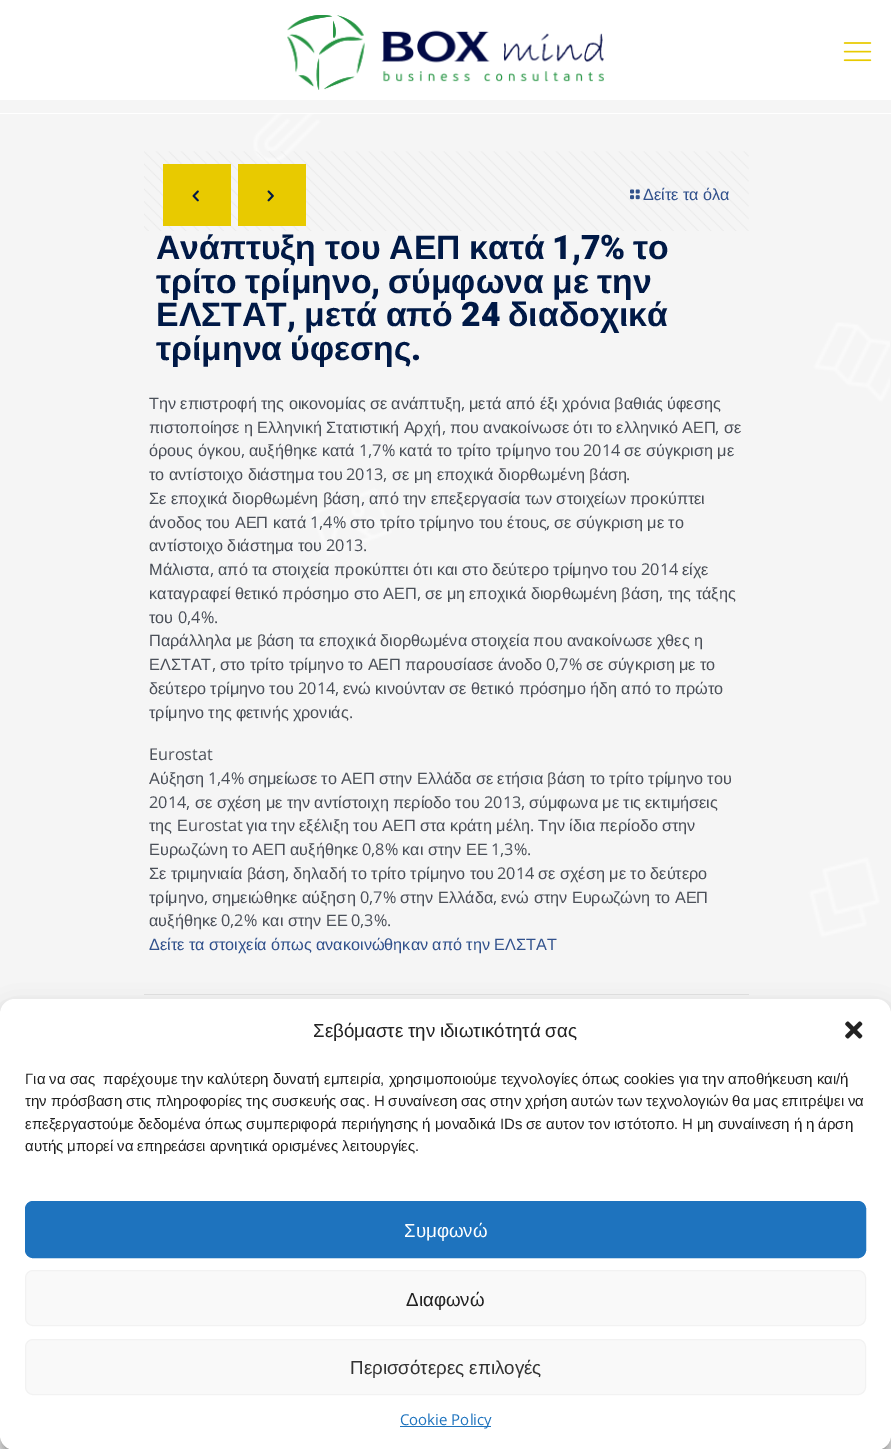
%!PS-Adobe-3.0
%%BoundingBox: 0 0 891 1449
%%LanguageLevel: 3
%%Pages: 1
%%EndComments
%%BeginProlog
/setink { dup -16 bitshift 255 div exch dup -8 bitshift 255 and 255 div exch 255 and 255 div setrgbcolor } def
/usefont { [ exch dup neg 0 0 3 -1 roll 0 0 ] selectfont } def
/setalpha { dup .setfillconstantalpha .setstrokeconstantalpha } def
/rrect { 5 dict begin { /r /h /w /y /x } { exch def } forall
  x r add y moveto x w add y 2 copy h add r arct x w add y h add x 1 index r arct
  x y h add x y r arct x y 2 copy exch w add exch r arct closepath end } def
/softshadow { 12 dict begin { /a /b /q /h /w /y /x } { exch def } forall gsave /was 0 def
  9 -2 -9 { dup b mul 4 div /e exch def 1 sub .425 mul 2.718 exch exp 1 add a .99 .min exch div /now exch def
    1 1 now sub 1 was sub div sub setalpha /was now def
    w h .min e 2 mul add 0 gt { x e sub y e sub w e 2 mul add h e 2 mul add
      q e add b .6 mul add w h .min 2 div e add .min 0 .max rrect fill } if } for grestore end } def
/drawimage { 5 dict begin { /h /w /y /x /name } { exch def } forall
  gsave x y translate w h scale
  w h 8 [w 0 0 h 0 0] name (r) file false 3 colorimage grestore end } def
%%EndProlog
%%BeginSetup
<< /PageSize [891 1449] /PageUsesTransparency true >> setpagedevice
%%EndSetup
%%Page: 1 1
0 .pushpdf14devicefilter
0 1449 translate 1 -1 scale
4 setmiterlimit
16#F5F5F5 setink
0 0 891 1449 rectfill
(img1.raw) 252 114 638 824 drawimage
16#FFFFFF setink
0 0 891 114 rectfill
(img2.raw) 287 15 317 75 drawimage
(img3.raw) 843 42 29 20 drawimage
16#F5F5F5 setink
0 100 891 13 rectfill
(img4.raw) 144 151 605 80 drawimage
16#E8CA00 setink
163 164 68 62 rectfill
(img5.raw) 192 190 7 12 drawimage
238 164 68 62 rectfill
(img6.raw) 267 190 7 12 drawimage
(img7.raw) 630 189 10 11 drawimage
/LiberationSans-Regular 16.25 usefont
16#31518C setink
643 200 moveto -0.25 0 32 (Δείτε τα όλα) widthshow
/LiberationSans-Bold 33.75 usefont
16#001946 setink
156 259 moveto -0.5 0 32 (Ανάπτυξη του ΑΕΠ κατά) widthshow
/Roboto-Black 33.75 usefont
552 259 moveto (1,7%) show
/LiberationSans-Bold 33.75 usefont
633 259 moveto (το) show
156 293 moveto -1 0 32 (τρίτο τρίμηνο) widthshow
/Roboto-Black 33.75 usefont
371 293 moveto (,) show
/LiberationSans-Bold 33.75 usefont
388 293 moveto -1 0 32 (σύμφωνα με την) widthshow
156 326 moveto (ΕΛΣΤΑΤ) show
/Roboto-Black 33.75 usefont
287 326 moveto (,) show
/LiberationSans-Bold 33.75 usefont
304 326 moveto -0.25 0 32 (μετά από) widthshow
/Roboto-Black 33.75 usefont
461 326 moveto (24) show
/LiberationSans-Bold 33.75 usefont
508 326 moveto (διαδοχικά) show
156 360 moveto -1 0 32 (τρίμηνα ύφεσης) widthshow
/Roboto-Black 33.75 usefont
411 360 moveto (.) show
/LiberationSans-Regular 16.25 usefont
16#4A4F58 setink
149 409 moveto -0.25 0 32 (Την επιστροφή της οικονομίας σε ανάπτυξη) widthshow
/OpenSans-Regular 16.25 usefont
461 409 moveto (,) show
/LiberationSans-Regular 16.25 usefont
469 409 moveto -0.25 0 32 (μετά από έξι χρόνια βαθιάς ύφεσης) widthshow
149 433 moveto -0.25 0 32 (πιστοποίησε η Ελληνική Στατιστική Αρχή) widthshow
/OpenSans-Regular 16.25 usefont
442 433 moveto (,) show
/LiberationSans-Regular 16.25 usefont
450 433 moveto -0.25 0 32 (που ανακοίνωσε ότι το ελληνικό ΑΕΠ) widthshow
/OpenSans-Regular 16.25 usefont
715 433 moveto (,) show
/LiberationSans-Regular 16.25 usefont
724 433 moveto (σε) show
149 456 moveto (όρους όγκου) show
/OpenSans-Regular 16.25 usefont
241 456 moveto (,) show
/LiberationSans-Regular 16.25 usefont
249 456 moveto (αυξήθηκε κατά) show
/OpenSans-Regular 16.25 usefont
359 456 moveto (1,7%) show
/LiberationSans-Regular 16.25 usefont
399 456 moveto (κατά το τρίτο τρίμηνο του) show
/OpenSans-Regular 16.25 usefont
583 456 moveto (2014) show
/LiberationSans-Regular 16.25 usefont
624 456 moveto (σε σύγκριση με) show
149 480 moveto (το αντίστοιχο διάστημα του) show
/OpenSans-Regular 16.25 usefont
346 480 moveto (2013,) show
/LiberationSans-Regular 16.25 usefont
392 480 moveto (σε μη εποχικά διορθωμένη βάση) show
/OpenSans-Regular 16.25 usefont
626 480 moveto (.) show
/LiberationSans-Regular 16.25 usefont
149 504 moveto -0.25 0 32 (Σε εποχικά διορθωμένη βάση) widthshow
/OpenSans-Regular 16.25 usefont
361 504 moveto (,) show
/LiberationSans-Regular 16.25 usefont
369 504 moveto -0.25 0 32 (από την επεξεργασία των στοιχείων προκύπτει) widthshow
149 528 moveto (άνοδος του ΑΕΠ κατά) show
/OpenSans-Regular 16.25 usefont
310 528 moveto (1,4%) show
/LiberationSans-Regular 16.25 usefont
350 528 moveto (στο τρίτο τρίμηνο του έτους) show
/OpenSans-Regular 16.25 usefont
546 528 moveto (,) show
/LiberationSans-Regular 16.25 usefont
554 528 moveto (σε σύγκριση με το) show
149 551 moveto -0.25 0 32 (αντίστοιχο διάστημα του) widthshow
/OpenSans-Regular 16.25 usefont
326 551 moveto (2013.) show
/LiberationSans-Regular 16.25 usefont
149 575 moveto (Μάλιστα) show
/OpenSans-Regular 16.25 usefont
210 575 moveto (,) show
/LiberationSans-Regular 16.25 usefont
218 575 moveto -0.25 0 32 (από τα στοιχεία προκύπτει ότι και στο δεύτερο τρίμηνο του) widthshow
/OpenSans-Regular 16.25 usefont
641 575 moveto (2014) show
/LiberationSans-Regular 16.25 usefont
682 575 moveto (είχε) show
149 599 moveto -0.25 0 32 (καταγραφεί θετικό πρόσημο στο ΑΕΠ) widthshow
/OpenSans-Regular 16.25 usefont
417 599 moveto (,) show
/LiberationSans-Regular 16.25 usefont
425 599 moveto -0.25 0 32 (σε μη εποχικά διορθωμένη βάση) widthshow
/OpenSans-Regular 16.25 usefont
659 599 moveto (,) show
/LiberationSans-Regular 16.25 usefont
668 599 moveto -0.25 0 32 (της τάξης) widthshow
149 623 moveto (του) show
/OpenSans-Regular 16.25 usefont
178 623 moveto (0,4%.) show
/LiberationSans-Regular 16.25 usefont
149 646 moveto -0.25 0 32 (Παράλληλα με βάση τα εποχικά διορθωμένα στοιχεία που ανακοίνωσε χθες η) widthshow
149 670 moveto (ΕΛΣΤΑΤ) show
/OpenSans-Regular 16.25 usefont
212 670 moveto (,) show
/LiberationSans-Regular 16.25 usefont
220 670 moveto -0.25 0 32 (στο τρίτο τρίμηνο το ΑΕΠ παρουσίασε άνοδο) widthshow
/OpenSans-Regular 16.25 usefont
546 670 moveto (0,7%) show
/LiberationSans-Regular 16.25 usefont
586 670 moveto -0.25 0 32 (σε σύγκριση με το) widthshow
149 694 moveto -0.25 0 32 (δεύτερο τρίμηνο του) widthshow
/OpenSans-Regular 16.25 usefont
298 694 moveto (2014,) show
/LiberationSans-Regular 16.25 usefont
343 694 moveto -0.25 0 32 (ενώ κινούνταν σε θετικό πρόσημο ήδη από το πρώτο) widthshow
149 718 moveto -0.25 0 32 (τρίμηνο της φετινής χρονιάς) widthshow
/OpenSans-Regular 16.25 usefont
349 718 moveto (.) show
149 760 moveto (Eurostat) show
/LiberationSans-Regular 16.25 usefont
149 784 moveto (Αύξηση) show
/OpenSans-Regular 16.25 usefont
208 784 moveto (1,4%) show
/LiberationSans-Regular 16.25 usefont
248 784 moveto -0.25 0 32 (σημείωσε το ΑΕΠ στην Ελλάδα σε ετήσια βάση το τρίτο τρίμηνο του) widthshow
/OpenSans-Regular 16.25 usefont
149 808 moveto (2014,) show
/LiberationSans-Regular 16.25 usefont
195 808 moveto -0.25 0 32 (σε σχέση με την αντίστοιχη περίοδο του) widthshow
/OpenSans-Regular 16.25 usefont
484 808 moveto (2013,) show
/LiberationSans-Regular 16.25 usefont
529 808 moveto -0.25 0 32 (σύμφωνα με τις εκτιμήσεις) widthshow
149 831 moveto -0.25 0 32 (της Ε) widthshow
/OpenSans-Regular 16.25 usefont
188 831 moveto (urostat) show
/LiberationSans-Regular 16.25 usefont
246 831 moveto -0.25 0 32 (για την εξέλιξη του ΑΕΠ στα κράτη μέλη) widthshow
/OpenSans-Regular 16.25 usefont
530 831 moveto (.) show
/LiberationSans-Regular 16.25 usefont
538 831 moveto -0.25 0 32 (Την ίδια περίοδο στην) widthshow
149 855 moveto (Ευρωζώνη το ΑΕΠ αυξήθηκε) show
/OpenSans-Regular 16.25 usefont
362 855 moveto (0,8%) show
/LiberationSans-Regular 16.25 usefont
402 855 moveto (και στην ΕΕ) show
/OpenSans-Regular 16.25 usefont
491 855 moveto (1,3%.) show
/LiberationSans-Regular 16.25 usefont
149 879 moveto (Σε τριμηνιαία βάση) show
/OpenSans-Regular 16.25 usefont
285 879 moveto (,) show
/LiberationSans-Regular 16.25 usefont
293 879 moveto (δηλαδή το τρίτο τρίμηνο του) show
/OpenSans-Regular 16.25 usefont
497 879 moveto (2014) show
/LiberationSans-Regular 16.25 usefont
538 879 moveto (σε σχέση με το δεύτερο) show
149 903 moveto (τρίμηνο) show
/OpenSans-Regular 16.25 usefont
204 903 moveto (,) show
/LiberationSans-Regular 16.25 usefont
212 903 moveto (σημειώθηκε αύξηση) show
/OpenSans-Regular 16.25 usefont
360 903 moveto (0,7%) show
/LiberationSans-Regular 16.25 usefont
400 903 moveto (στην Ελλάδα) show
/OpenSans-Regular 16.25 usefont
493 903 moveto (,) show
/LiberationSans-Regular 16.25 usefont
501 903 moveto (ενώ στην Ευρωζώνη το ΑΕΠ) show
149 926 moveto (αυξήθηκε) show
/OpenSans-Regular 16.25 usefont
221 926 moveto (0,2%) show
/LiberationSans-Regular 16.25 usefont
262 926 moveto (και στην ΕΕ) show
/OpenSans-Regular 16.25 usefont
351 926 moveto (0,3%.) show
/LiberationSans-Regular 16.25 usefont
16#31518C setink
149 950 moveto -0.25 0 32 (Δείτε τα στοιχεία όπως ανακοινώθηκαν από την ΕΛΣΤΑΤ) widthshow
16#E1E1E1 setink
144 994 605 1 rectfill
16#000000 setink
0 1006 891 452 15 4 0.23 softshadow
0 1011 891 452 15 12.5 0.19 softshadow
16#808080 setink
804 1358 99 75 2.5 3 1 softshadow
16#FFFFFF setink
0 999 891 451 15 rrect fill
/LiberationSans-Regular 18.75 usefont
16#222222 setink
313 1037 moveto -0.5 0 32 (Σεβόμαστε την ιδιωτικότητά σας) widthshow
(img8.raw) 845 1021 18 18 drawimage
/LiberationSans-Regular 15 usefont
25 1084 moveto (Για να σας  παρέχουμε την καλύτερη δυνατή εμπειρία, χρησιμοποιούμε τεχνολογίες όπως cookies για την αποθήκευση και/ή) show
25 1106 moveto -0.25 0 32 (την πρόσβαση στις πληροφορίες της συσκευής σας. Η συναίνεση σας στην χρήση αυτών των τεχνολογιών θα μας επιτρέψει να) widthshow
25 1129 moveto -0.25 0 32 (επεξεργαστούμε δεδομένα όπως συμπεριφορά περιήγησης ή μοναδικά IDs σε αυτον τον ιστότοπο. Η μη συναίινεση ή η άρση) widthshow
25 1151 moveto -0.25 0 32 (αυτής μπορεί να επηρεάσει αρνητικά ορισμένες λειτουργίες.) widthshow
16#1E73BE setink
25.5 1201.5 840 56 7.5 rrect gsave fill grestore
stroke
/LiberationSans-Regular 18.75 usefont
16#FFFFFF setink
404 1237 moveto (Συμφωνώ) show
16#F9F9F9 setink
25.5 1270.5 840 55 7.5 rrect gsave fill grestore
16#F2F2F2 setink
stroke
16#222222 setink
406 1306 moveto (Διαφωνώ) show
16#F9F9F9 setink
25.5 1339.5 840 55 7.5 rrect gsave fill grestore
16#F2F2F2 setink
stroke
16#333333 setink
350 1374 moveto (Περισσότερες επιλογές) show
16#1E73BE setink
400 1426 91 1 rectfill
/OpenSans-Regular 15 usefont
400 1425 moveto (Cookie Policy) show
.poppdf14devicefilter showpage
%%EOF
